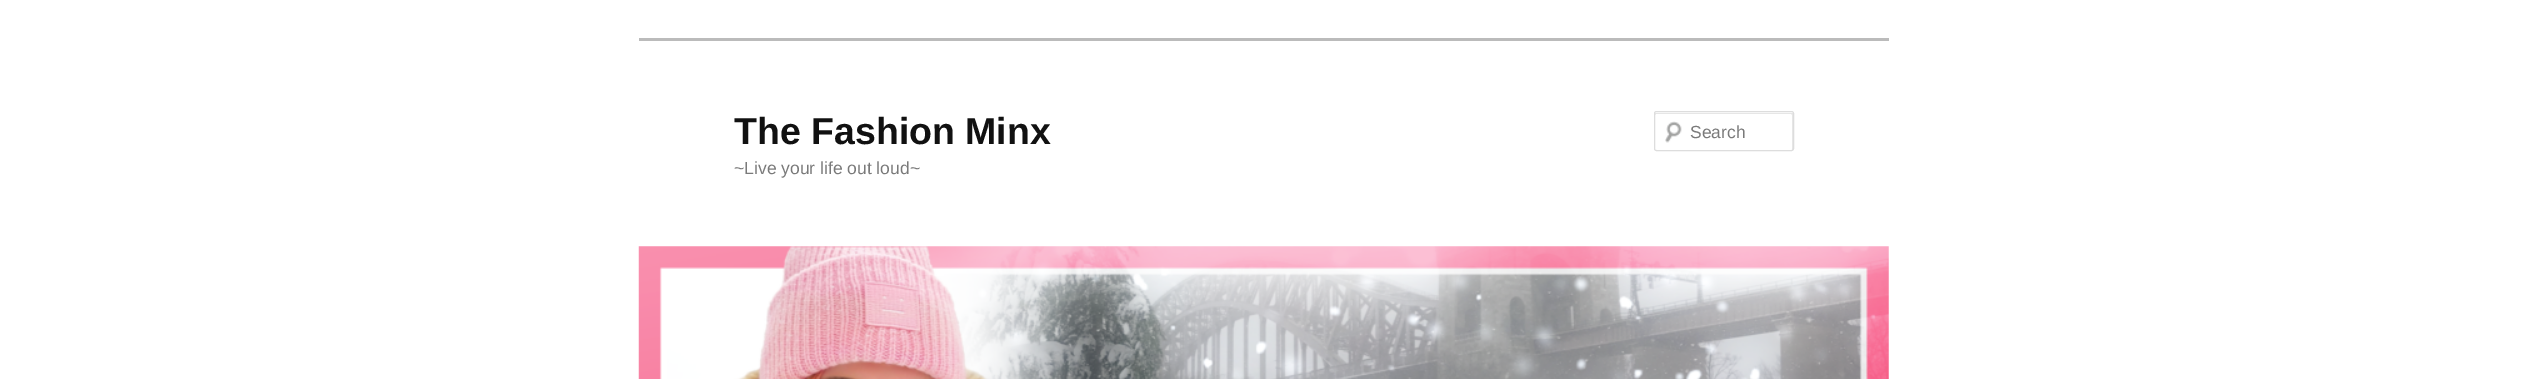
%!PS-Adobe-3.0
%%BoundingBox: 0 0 2527 379
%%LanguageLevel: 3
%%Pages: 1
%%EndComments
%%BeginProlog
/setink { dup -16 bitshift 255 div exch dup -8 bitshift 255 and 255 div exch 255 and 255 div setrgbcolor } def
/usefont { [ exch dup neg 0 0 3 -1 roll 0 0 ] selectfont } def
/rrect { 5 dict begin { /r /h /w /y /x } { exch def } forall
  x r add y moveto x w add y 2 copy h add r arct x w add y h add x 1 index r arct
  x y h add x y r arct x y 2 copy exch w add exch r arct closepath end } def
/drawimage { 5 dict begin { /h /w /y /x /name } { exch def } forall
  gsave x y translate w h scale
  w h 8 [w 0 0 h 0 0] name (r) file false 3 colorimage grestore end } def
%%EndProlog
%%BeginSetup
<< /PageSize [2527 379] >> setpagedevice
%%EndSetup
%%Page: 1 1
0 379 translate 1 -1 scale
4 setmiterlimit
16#FFFFFF setink
0 0 2527 379 rectfill
16#BBBBBB setink
639 38 1250 3 rectfill
/LiberationSans-Bold 37.5 usefont
16#111111 setink
734 144 moveto (The Fashion Minx) show
/LiberationSans-Regular 17.5 usefont
16#7A7A7A setink
734 174 moveto (~Live your life out loud~) show
(img1.raw) 1665 121 17 22 drawimage
16#E6E6E6 setink
1656 114 moveto 1791 114 lineto 1792 114 1792 114 1792 115 curveto 1792 150 lineto 1793 150 1793 150 1793 149 curveto 1793 114 lineto 1793 113 1793 113 1792 113 curveto 1656 113 lineto 1655 113 1655 113 1655 114 curveto 1655 115 lineto closepath fill
16#DDDDDD setink
1654.5 111.5 139 39 2 rrect stroke
16#7A7A7A setink
1690 138 moveto (Search) show
(img2.raw) 638 246 1251 133 drawimage
showpage
%%EOF
